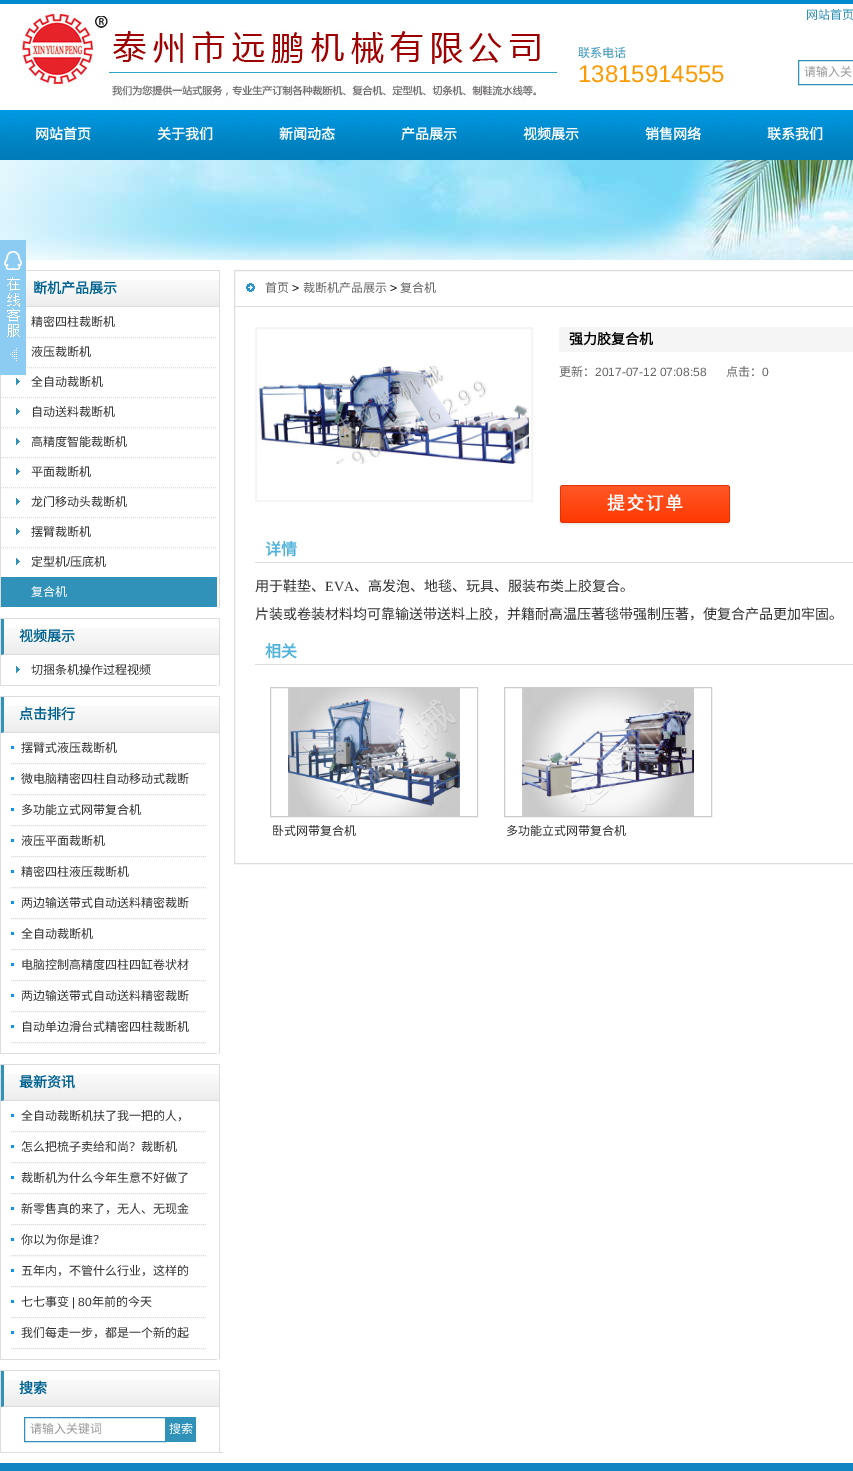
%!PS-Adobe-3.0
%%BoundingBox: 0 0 853 1471
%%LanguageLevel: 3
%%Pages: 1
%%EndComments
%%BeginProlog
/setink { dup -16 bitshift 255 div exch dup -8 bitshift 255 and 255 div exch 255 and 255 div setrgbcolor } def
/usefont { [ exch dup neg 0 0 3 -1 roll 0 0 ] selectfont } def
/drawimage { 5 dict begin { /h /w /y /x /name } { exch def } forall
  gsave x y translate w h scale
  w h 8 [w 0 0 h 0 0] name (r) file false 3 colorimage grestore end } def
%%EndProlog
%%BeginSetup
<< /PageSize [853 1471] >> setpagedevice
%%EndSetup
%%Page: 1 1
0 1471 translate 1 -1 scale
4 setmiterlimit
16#FFFFFF setink
0 0 853 1471 rectfill
(img4.raw) 0 160 853 100 drawimage
16#DDDDDD setink
219 307 moveto 1 307 lineto 4 306 lineto 219 306 lineto closepath fill
[1 1] 0 setdash
1 337.5 moveto 217 337.5 lineto stroke
1 367.5 moveto 217 367.5 lineto stroke
(img1.raw) 0 240 26 135 drawimage
16#0089CC setink
0 0 853 4 rectfill
(img2.raw) 16 7 544 96 drawimage
/NotoSansCJKSC-Regular 12 usefont
16#3092B9 setink
806 19 moveto (网站首页) show
578 57 moveto (联系电话) show
/LiberationSans-Regular 24 usefont
16#FF9900 setink
578 82 moveto (13815914555) show
16#3092B9 setink
[] 0 setdash
798.5 60.5 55 24 rectstroke
/NotoSansCJKSC-Regular 12 usefont
16#999999 setink
804 76 moveto (请输入关) show
(img3.raw) 0 110 853 50 drawimage
/NotoSansCJKSC-Bold 14 usefont
16#FFFFFF setink
[
    [(网站首页) 35 139]
    [(关于我们) 157 139]
    [(新闻动态) 279 139]
    [(产品展示) 401 139]
    [(视频展示) 523 139]
    [(销售网络) 645 139]
    [(联系我们) 767 139]
] { aload pop moveto show } forall
(img5.raw) 26 280 193 26 drawimage
[
    [26 270 194 1 16#DDDDDD]
    [219 270 1 338 16#DDDDDD]
    [0 375 1 233 16#DDDDDD]
] { aload pop setink rectfill } forall
16#016392 setink
33 293 moveto (断机产品展示) show
/NotoSansCJKSC-Regular 12 usefont
16#333333 setink
31 326 moveto (精密四柱裁断机) show
31 356 moveto (液压裁断机) show
(img6.raw) 16 378 4 7 drawimage
16#DDDDDD setink
[1 1] 0 setdash
1 397.5 moveto 217 397.5 lineto stroke
16#333333 setink
31 386 moveto (全自动裁断机) show
(img6.raw) 16 408 4 7 drawimage
16#DDDDDD setink
1 427.5 moveto 217 427.5 lineto stroke
16#333333 setink
31 416 moveto (自动送料裁断机) show
(img6.raw) 16 438 4 7 drawimage
16#DDDDDD setink
1 457.5 moveto 217 457.5 lineto stroke
16#333333 setink
31 446 moveto (高精度智能裁断机) show
(img6.raw) 16 468 4 7 drawimage
16#DDDDDD setink
1 487.5 moveto 217 487.5 lineto stroke
16#333333 setink
31 476 moveto (平面裁断机) show
(img6.raw) 16 498 4 7 drawimage
16#DDDDDD setink
1 517.5 moveto 217 517.5 lineto stroke
16#333333 setink
31 506 moveto (龙门移动头裁断机) show
(img6.raw) 16 528 4 7 drawimage
16#DDDDDD setink
1 547.5 moveto 217 547.5 lineto stroke
16#333333 setink
31 536 moveto (摆臂裁断机) show
(img6.raw) 16 558 4 7 drawimage
31 566 moveto (定型机) show
/LiberationSans-Regular 12 usefont
67 566 moveto (/) show
/NotoSansCJKSC-Regular 12 usefont
70 566 moveto (压底机) show
16#3092B9 setink
1 577 216 30 rectfill
16#FFFFFF setink
31 596 moveto (复合机) show
(img7.raw) 1 628 218 27 drawimage
[
    [0 618 220 1 16#DDDDDD]
    [219 618 1 68 16#DDDDDD]
    [0 618 1 68 16#DDDDDD]
] { aload pop setink rectfill } forall
219 655 moveto 1 655 lineto 4 654 lineto 219 654 lineto closepath fill
16#3092B9 setink
1 655 moveto 1 619 lineto 4 619 lineto 4 654 lineto closepath fill
/NotoSansCJKSC-Bold 14 usefont
16#016392 setink
19 641 moveto (视频展示) show
16#DDDDDD setink
1 685 216 1 rectfill
(img6.raw) 16 666 4 7 drawimage
/NotoSansCJKSC-Regular 12 usefont
16#333333 setink
31 674 moveto (切捆条机操作过程视频) show
(img7.raw) 1 706 218 27 drawimage
[
    [0 696 220 1 16#DDDDDD]
    [219 696 1 358 16#DDDDDD]
    [0 696 1 358 16#DDDDDD]
] { aload pop setink rectfill } forall
219 733 moveto 1 733 lineto 4 732 lineto 219 732 lineto closepath fill
16#3092B9 setink
1 733 moveto 1 697 lineto 4 697 lineto 4 732 lineto closepath fill
/NotoSansCJKSC-Bold 14 usefont
16#016392 setink
19 719 moveto (点击排行) show
16#DDDDDD setink
1 1053 216 1 rectfill
16#0D93F4 setink
11 746 3 3 rectfill
16#DDDDDD setink
11 763.5 moveto 207 763.5 lineto stroke
/NotoSansCJKSC-Regular 12 usefont
16#333333 setink
21 752 moveto (摆臂式液压裁断机) show
16#0D93F4 setink
11 777 3 3 rectfill
16#DDDDDD setink
11 794.5 moveto 207 794.5 lineto stroke
16#333333 setink
21 783 moveto (微电脑精密四柱自动移动式裁断) show
16#0D93F4 setink
11 808 3 3 rectfill
16#DDDDDD setink
11 825.5 moveto 207 825.5 lineto stroke
16#333333 setink
21 814 moveto (多功能立式网带复合机) show
16#0D93F4 setink
11 839 3 3 rectfill
16#DDDDDD setink
11 856.5 moveto 207 856.5 lineto stroke
16#333333 setink
21 845 moveto (液压平面裁断机) show
16#0D93F4 setink
11 870 3 3 rectfill
16#DDDDDD setink
11 887.5 moveto 207 887.5 lineto stroke
16#333333 setink
21 876 moveto (精密四柱液压裁断机) show
16#0D93F4 setink
11 901 3 3 rectfill
16#DDDDDD setink
11 918.5 moveto 207 918.5 lineto stroke
16#333333 setink
21 907 moveto (两边输送带式自动送料精密裁断) show
16#0D93F4 setink
11 932 3 3 rectfill
16#DDDDDD setink
11 949.5 moveto 207 949.5 lineto stroke
16#333333 setink
21 938 moveto (全自动裁断机) show
16#0D93F4 setink
11 963 3 3 rectfill
16#DDDDDD setink
11 980.5 moveto 207 980.5 lineto stroke
16#333333 setink
21 969 moveto (电脑控制高精度四柱四缸卷状材) show
16#0D93F4 setink
11 994 3 3 rectfill
16#DDDDDD setink
11 1011.5 moveto 207 1011.5 lineto stroke
16#333333 setink
21 1000 moveto (两边输送带式自动送料精密裁断) show
16#0D93F4 setink
11 1025 3 3 rectfill
16#DDDDDD setink
11 1042.5 moveto 207 1042.5 lineto stroke
16#333333 setink
21 1031 moveto (自动单边滑台式精密四柱裁断机) show
(img7.raw) 1 1074 218 27 drawimage
[
    [0 1064 220 1 16#DDDDDD]
    [219 1064 1 296 16#DDDDDD]
    [0 1064 1 296 16#DDDDDD]
] { aload pop setink rectfill } forall
219 1101 moveto 1 1101 lineto 4 1100 lineto 219 1100 lineto closepath fill
16#3092B9 setink
1 1101 moveto 1 1065 lineto 4 1065 lineto 4 1100 lineto closepath fill
/NotoSansCJKSC-Bold 14 usefont
16#016392 setink
19 1087 moveto (最新资讯) show
16#DDDDDD setink
1 1359 216 1 rectfill
16#0D93F4 setink
11 1114 3 3 rectfill
16#DDDDDD setink
11 1131.5 moveto 207 1131.5 lineto stroke
/NotoSansCJKSC-Regular 12 usefont
16#333333 setink
21 1120 moveto (全自动裁断机扶了我一把的人，) show
16#0D93F4 setink
11 1145 3 3 rectfill
16#DDDDDD setink
11 1162.5 moveto 207 1162.5 lineto stroke
16#333333 setink
21 1151 moveto (怎么把梳子卖给和尚？裁断机) show
16#0D93F4 setink
11 1176 3 3 rectfill
16#DDDDDD setink
11 1193.5 moveto 207 1193.5 lineto stroke
16#333333 setink
21 1182 moveto (裁断机为什么今年生意不好做了) show
16#0D93F4 setink
11 1207 3 3 rectfill
16#DDDDDD setink
11 1224.5 moveto 207 1224.5 lineto stroke
16#333333 setink
21 1213 moveto (新零售真的来了，无人、无现金) show
16#0D93F4 setink
11 1238 3 3 rectfill
16#DDDDDD setink
11 1255.5 moveto 207 1255.5 lineto stroke
16#333333 setink
21 1244 moveto (你以为你是谁？) show
16#0D93F4 setink
11 1269 3 3 rectfill
16#DDDDDD setink
11 1286.5 moveto 207 1286.5 lineto stroke
16#333333 setink
21 1275 moveto (五年内，不管什么行业，这样的) show
16#0D93F4 setink
11 1300 3 3 rectfill
16#DDDDDD setink
11 1317.5 moveto 207 1317.5 lineto stroke
16#333333 setink
21 1306 moveto (七七事变) show
/LiberationSans-Regular 12 usefont
72 1306 moveto (| 80) show
/NotoSansCJKSC-Regular 12 usefont
92 1306 moveto (年前的今天) show
16#0D93F4 setink
11 1331 3 3 rectfill
16#DDDDDD setink
11 1348.5 moveto 207 1348.5 lineto stroke
16#333333 setink
21 1337 moveto (我们每走一步，都是一个新的起) show
(img7.raw) 1 1380 218 27 drawimage
[
    [0 1370 220 1 16#DDDDDD]
    [219 1370 1 83 16#DDDDDD]
    [0 1370 1 83 16#DDDDDD]
] { aload pop setink rectfill } forall
219 1407 moveto 1 1407 lineto 4 1406 lineto 219 1406 lineto closepath fill
16#3092B9 setink
1 1407 moveto 1 1371 lineto 4 1371 lineto 4 1406 lineto closepath fill
/NotoSansCJKSC-Bold 14 usefont
16#016392 setink
19 1393 moveto (搜索) show
16#DDDDDD setink
1 1452 222 1 rectfill
16#3092B9 setink
[] 0 setdash
24.5 1417.5 141 24 rectstroke
/NotoSansCJKSC-Regular 12 usefont
16#999999 setink
30 1433 moveto (请输入关键词) show
16#3092B9 setink
166 1417 30 25 rectfill
16#FFFFFF setink
169 1433 moveto (搜索) show
16#DDDDDD setink
234.5 270.5 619 593 rectstroke
235 306 618 1 rectfill
(img8.raw) 246 283 9 9 drawimage
16#666666 setink
265 292 moveto (首页) show
/LiberationSans-Regular 12 usefont
16#000000 setink
292 292 moveto (>) show
/NotoSansCJKSC-Regular 12 usefont
16#666666 setink
303 292 moveto (裁断机产品展示) show
/LiberationSans-Regular 12 usefont
16#000000 setink
390 292 moveto (>) show
/NotoSansCJKSC-Regular 12 usefont
16#666666 setink
400 292 moveto (复合机) show
16#F5F5F5 setink
2 setlinewidth
256 328 276 173 rectstroke
(img9.raw) 259 365 270 99 drawimage
559 327 294 25 rectfill
/NotoSansCJKSC-Bold 14 usefont
16#000000 setink
569 344 moveto (强力胶复合机) show
/NotoSansCJKSC-Regular 12 usefont
16#666666 setink
559 376 moveto (更新：) show
/LiberationSans-Regular 12 usefont
595 376 moveto (2017-07-12 07:08:58) show
/NotoSansCJKSC-Regular 12 usefont
726 376 moveto (点击：) show
/LiberationSans-Regular 12 usefont
762 376 moveto (0) show
(img10.raw) 559 485 172 40 drawimage
16#DDDDDD setink
255 562 598 1 rectfill
/NotoSansCJKSC-Bold 16 usefont
16#50B3DB setink
265 555 moveto (详情) show
/NotoSansCJKSC-Regular 14 usefont
16#333333 setink
255 591 moveto (用于鞋垫、) show
/LiberationSerif-Regular 14 usefont
325 591 moveto (EVA) show
/NotoSansCJKSC-Regular 14 usefont
354 591 moveto (、高发泡、地毯、玩具、服装布类上胶复合。) show
255 619 moveto (片装或卷装材料均可靠输送带送料上胶，并籍耐高温压著毯带强制压著，使复合产品更加牢固。) show
16#DDDDDD setink
255 664 598 1 rectfill
/NotoSansCJKSC-Bold 16 usefont
16#50B3DB setink
265 657 moveto (相关) show
16#CCCCCC setink
1 setlinewidth
270.5 687.5 207 129 rectstroke
(img11.raw) 288 688 172 128 drawimage
/NotoSansCJKSC-Regular 12 usefont
16#333333 setink
272 835 moveto (卧式网带复合机) show
16#CCCCCC setink
504.5 687.5 207 129 rectstroke
(img12.raw) 522 688 172 128 drawimage
16#333333 setink
506 835 moveto (多功能立式网带复合机) show
16#1185C1 setink
0 1463 853 8 rectfill
showpage
%%EOF
